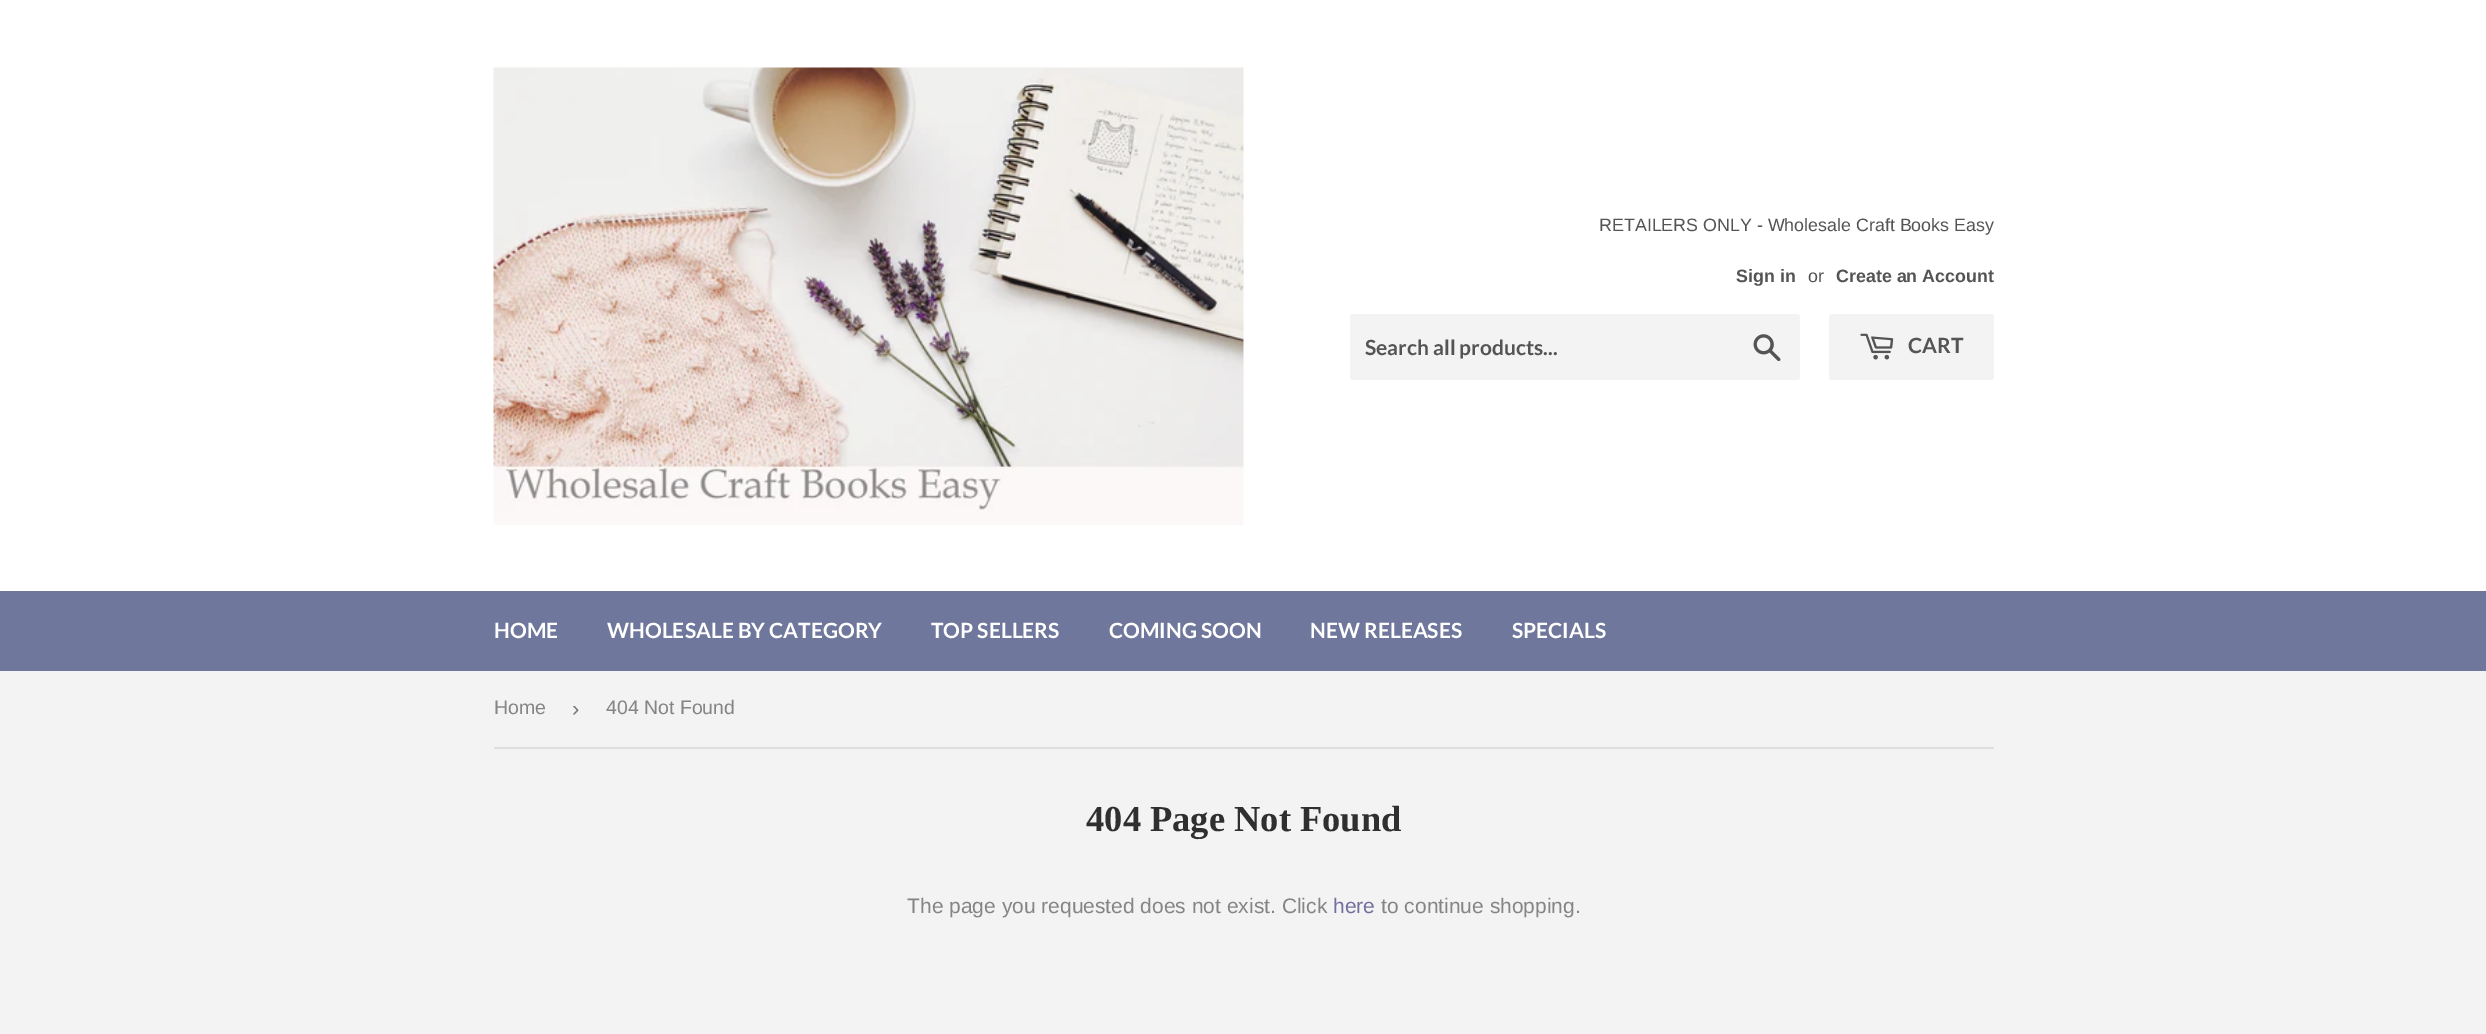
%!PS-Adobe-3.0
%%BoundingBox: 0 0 2486 1034
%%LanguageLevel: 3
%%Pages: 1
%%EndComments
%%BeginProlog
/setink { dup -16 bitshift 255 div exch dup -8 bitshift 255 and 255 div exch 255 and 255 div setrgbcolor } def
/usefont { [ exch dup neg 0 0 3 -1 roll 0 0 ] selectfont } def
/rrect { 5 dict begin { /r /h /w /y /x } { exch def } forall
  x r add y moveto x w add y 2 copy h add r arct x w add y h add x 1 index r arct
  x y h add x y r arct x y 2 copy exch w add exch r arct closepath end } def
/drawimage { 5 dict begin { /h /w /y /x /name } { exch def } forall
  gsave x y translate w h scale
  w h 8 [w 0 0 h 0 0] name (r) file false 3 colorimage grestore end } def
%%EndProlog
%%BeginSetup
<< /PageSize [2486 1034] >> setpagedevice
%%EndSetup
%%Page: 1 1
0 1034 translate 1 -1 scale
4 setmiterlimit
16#F3F3F3 setink
0 0 2486 1034 rectfill
16#FFFFFF setink
0 0 2486 591 rectfill
(img1.raw) 493 67 751 458 drawimage
/LiberationSans-Regular 17.85 usefont
16#545454 setink
1599 231 moveto (RETAILERS ONLY - Wholesale Craft Books Easy) show
/LiberationSans-Bold 17.85 usefont
1736 282 moveto (Sign in) show
/LiberationSans-Regular 17.85 usefont
1808 282 moveto (or) show
/LiberationSans-Bold 17.85 usefont
1836 282 moveto (Create an Account) show
16#F3F3F3 setink
1350 314 450 66 3 rrect fill
/Lato-Bold 21 usefont
16#545454 setink
1365 355 moveto (Search all products...) show
(img2.raw) 1753 334 28 28 drawimage
16#F3F3F3 setink
1829 314 165 66 3 rrect fill
(img3.raw) 1860 333 34 27 drawimage
16#545454 setink
1908 353 moveto (CART) show
16#6F779C setink
0 591 2486 80 rectfill
16#FFFFFF setink
[
    [(HOME) 494 638]
    [(WHOLESALE BY CATEGORY) 607 638]
    [(TOP SELLERS) 931 638]
    [(COMING SOON) 1109 638]
    [(NEW RELEASES) 1310 638]
    [(SPECIALS) 1512 638]
] { aload pop moveto show } forall
16#DEDEDE setink
494 747 1500 2 rectfill
/LiberationSans-Regular 19.5 usefont
16#858585 setink
494 714 moveto (Home) show
/LiberationSans-Regular 22 usefont
16#767676 setink
572 716 moveto (›) show
/LiberationSans-Regular 19.5 usefont
16#858585 setink
606 714 moveto (404 Not Found) show
/LiberationSerif-Bold 36.5 usefont
16#2F2F2F setink
1086 831 moveto (404 Page Not Found) show
/LiberationSans-Regular 21 usefont
16#858585 setink
907 913 moveto (The page you requested does not exist. Click) show
16#716F9C setink
1333 913 moveto (here) show
16#858585 setink
1381 913 moveto (to continue shopping.) show
showpage
%%EOF
